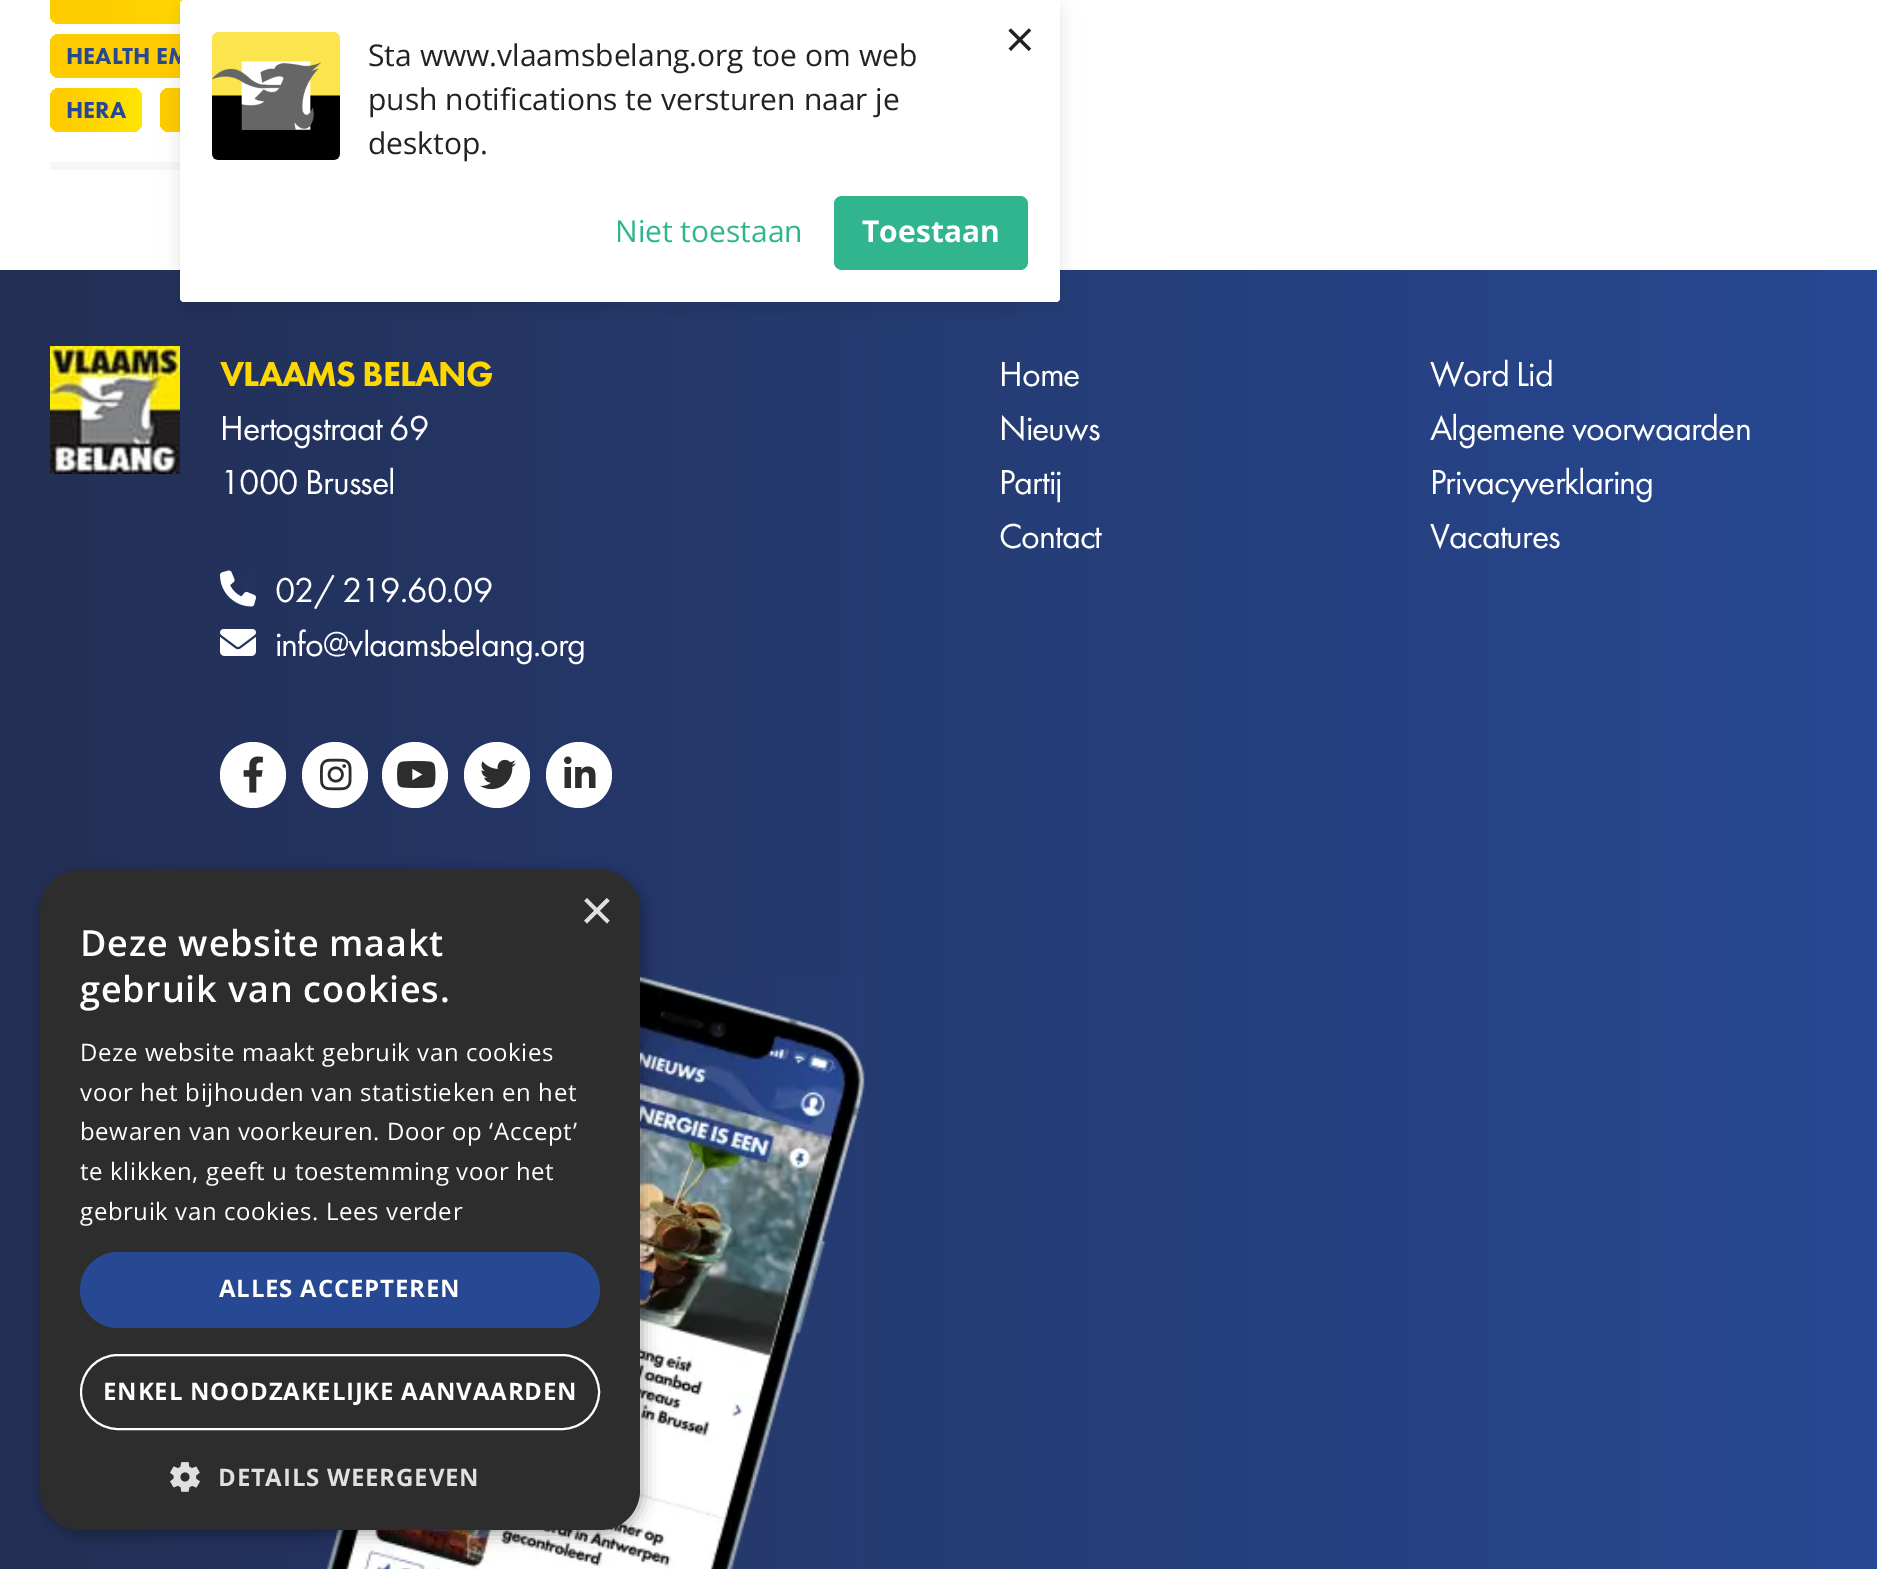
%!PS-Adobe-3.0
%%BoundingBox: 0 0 1877 1569
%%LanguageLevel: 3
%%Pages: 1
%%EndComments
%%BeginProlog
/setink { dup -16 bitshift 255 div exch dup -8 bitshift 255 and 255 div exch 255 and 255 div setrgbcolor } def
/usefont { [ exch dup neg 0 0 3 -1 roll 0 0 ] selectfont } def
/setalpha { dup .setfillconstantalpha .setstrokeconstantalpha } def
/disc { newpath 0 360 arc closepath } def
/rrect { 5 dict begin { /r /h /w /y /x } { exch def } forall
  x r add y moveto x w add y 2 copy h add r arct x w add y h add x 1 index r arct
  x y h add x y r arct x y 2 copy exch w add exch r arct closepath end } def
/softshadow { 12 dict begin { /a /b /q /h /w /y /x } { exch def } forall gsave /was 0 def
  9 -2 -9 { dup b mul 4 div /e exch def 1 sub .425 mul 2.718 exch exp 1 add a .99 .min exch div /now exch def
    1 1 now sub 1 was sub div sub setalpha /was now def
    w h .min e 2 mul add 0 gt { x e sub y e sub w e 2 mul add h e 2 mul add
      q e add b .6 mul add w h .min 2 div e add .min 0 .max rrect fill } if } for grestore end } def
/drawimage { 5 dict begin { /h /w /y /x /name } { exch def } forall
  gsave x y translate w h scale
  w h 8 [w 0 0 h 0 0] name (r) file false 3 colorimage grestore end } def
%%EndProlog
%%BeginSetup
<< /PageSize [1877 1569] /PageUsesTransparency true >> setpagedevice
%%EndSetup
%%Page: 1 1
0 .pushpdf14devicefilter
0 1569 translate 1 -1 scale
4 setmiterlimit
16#FFFFFF setink
0 0 1877 1569 rectfill
16#F6F6F6 setink
50 162 130 8 rectfill
gsave 50 -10 270 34 10 rrect clip newpath
<< /ShadingType 2 /ColorSpace /DeviceRGB /Coords [320 3.3 50 0.7] /Extend [true true] /Function << /FunctionType 3 /Domain [0 1] /Functions [<< /FunctionType 2 /Domain [0 1] /C0 [1 0.898 0] /C1 [1 0.898 0] /N 1 >> << /FunctionType 2 /Domain [0 1] /C0 [1 0.898 0] /C1 [1 0.8 0] /N 1 >> << /FunctionType 2 /Domain [0 1] /C0 [1 0.8 0] /C1 [1 0.8 0] /N 1 >>] /Bounds [0.02 0.86] /Encode [0 1 0 1 0 1] >> >> shfill grestore
gsave 50 34 754 44 10 rrect clip newpath
<< /ShadingType 2 /ColorSpace /DeviceRGB /Coords [804 60 50 52] /Extend [true true] /Function << /FunctionType 3 /Domain [0 1] /Functions [<< /FunctionType 2 /Domain [0 1] /C0 [1 0.898 0] /C1 [1 0.898 0] /N 1 >> << /FunctionType 2 /Domain [0 1] /C0 [1 0.898 0] /C1 [1 0.8 0] /N 1 >> << /FunctionType 2 /Domain [0 1] /C0 [1 0.8 0] /C1 [1 0.8 0] /N 1 >>] /Bounds [0.02 0.86] /Encode [0 1 0 1 0 1] >> >> shfill grestore
gsave 160 88 94 44 10 rrect clip newpath
<< /ShadingType 2 /ColorSpace /DeviceRGB /Coords [254 110 160 110] /Extend [true true] /Function << /FunctionType 3 /Domain [0 1] /Functions [<< /FunctionType 2 /Domain [0 1] /C0 [1 0.898 0] /C1 [1 0.898 0] /N 1 >> << /FunctionType 2 /Domain [0 1] /C0 [1 0.898 0] /C1 [1 0.8 0] /N 1 >> << /FunctionType 2 /Domain [0 1] /C0 [1 0.8 0] /C1 [1 0.8 0] /N 1 >>] /Bounds [0.02 0.86] /Encode [0 1 0 1 0 1] >> >> shfill grestore
gsave 0 270 moveto 1877 270 lineto 1877 1569 lineto 0 1569 lineto closepath clip newpath
<< /ShadingType 2 /ColorSpace /DeviceRGB /Coords [0 921 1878 921] /Extend [true true] /Function << /FunctionType 3 /Domain [0 1] /Functions [<< /FunctionType 2 /Domain [0 1] /C0 [0.137 0.188 0.337] /C1 [0.137 0.188 0.337] /N 1 >> << /FunctionType 2 /Domain [0 1] /C0 [0.137 0.188 0.337] /C1 [0.153 0.282 0.576] /N 1 >>] /Bounds [0.03] /Encode [0 1 0 1] >> >> shfill grestore
16#000000 setink
180 8 880 302 4 10 0.1 softshadow
/FuturaPT-Black 24 usefont
16#274893 setink
66 64 moveto (HEALTH EM) show
16#FFFFFF setink
180 0 880 302 4 rrect fill
/OpenSans-Regular 52 usefont
16#222222 setink
1005 58 moveto (×) show
(img1.raw) 212 32 128 128 drawimage
/OpenSans-Regular 30 usefont
[
    [(Sta www.vlaamsbelang.org toe om web) 368 66]
    [(push notifications te versturen naar je) 368 110]
    [(desktop.) 368 154]
] { aload pop moveto show } forall
16#31B58E setink
615 242 moveto (Niet toestaan) show
834 196 194 74 8 rrect fill
/OpenSans-Bold 30 usefont
16#FFFFFF setink
862 242 moveto (Toestaan) show
gsave 50 88 92 44 10 rrect clip newpath
<< /ShadingType 2 /ColorSpace /DeviceRGB /Coords [142 110 50 110] /Extend [true true] /Function << /FunctionType 3 /Domain [0 1] /Functions [<< /FunctionType 2 /Domain [0 1] /C0 [1 0.898 0] /C1 [1 0.898 0] /N 1 >> << /FunctionType 2 /Domain [0 1] /C0 [1 0.898 0] /C1 [1 0.8 0] /N 1 >> << /FunctionType 2 /Domain [0 1] /C0 [1 0.8 0] /C1 [1 0.8 0] /N 1 >>] /Bounds [0.02 0.86] /Encode [0 1 0 1 0 1] >> >> shfill grestore
/FuturaPT-Black 24 usefont
16#274893 setink
66 118 moveto (HERA) show
(img2.raw) 50 346 130 128 drawimage
/FuturaPT-Black 36 usefont
16#FFD700 setink
220 386 moveto -1 0 (VLAAMS BELANG) ashow
/FuturaPT-Regular 36 usefont
16#FFFFFF setink
220 440 moveto -1 0 (Hertogstraat 69) ashow
220 494 moveto -1 0 (1000 Brussel) ashow
(img3.raw) 220 570 36 37 drawimage
275 602 moveto -1 0 (02/ 219.60.09) ashow
(img4.raw) 220 629 36 27 drawimage
275 656 moveto -1 0 (info@vlaamsbelang.org) ashow
253 775 33 disc fill
(img5.raw) 243 756 20 37 drawimage
335 775 33 disc fill
(img6.raw) 320 758 32 33 drawimage
415 775 33 disc fill
(img7.raw) 397 761 39 27 drawimage
497 775 33 disc fill
(img8.raw) 480 759 36 31 drawimage
579 775 33 disc fill
(img9.raw) 564 756 32 32 drawimage
999 386 moveto -1 0 (Home) ashow
1430 386 moveto -1 0 (Word Lid) ashow
999 440 moveto -1 0 (Nieuws) ashow
999 494 moveto -1 0 (Partij) ashow
999 548 moveto -1 0 (Contact) ashow
1430 440 moveto -1 0 (Algemene voorwaarden) ashow
1430 494 moveto -1 0 (Privacyverklaring) ashow
1430 548 moveto -1 0 (Vacatures) ashow
(img10.raw) 326 975 539 594 drawimage
16#000000 setink
42 874 600 660 40 8 0.35 softshadow
16#2D2D2D setink
40 870 600 660 40 rrect fill
/LiberationSans-Regular 58 usefont
16#E0E0E0 setink
580 930 moveto (×) show
/OpenSans-SemiBold 36 usefont
16#FFFFFF setink
80 956 moveto 0.8 0 (Deze website maakt) ashow
80 1002 moveto 0.8 0 (gebruik van cookies.) ashow
/OpenSans-Regular 24 usefont
80 1061 moveto 0.6 0 (Deze website maakt gebruik van cookies) ashow
80 1101 moveto 0.6 0 (voor het bijhouden van statistieken en het) ashow
80 1140 moveto 0.6 0 (bewaren van voorkeuren. Door op ‘Accept’) ashow
80 1180 moveto 0.6 0 (te klikken, geeft u toestemming voor het) ashow
80 1220 moveto 0.6 0 (gebruik van cookies. Lees verder) ashow
16#274893 setink
80 1252 520 76 38 rrect fill
/OpenSans-Bold 24 usefont
16#FFFFFF setink
219 1297 moveto 0.8 0 (ALLES ACCEPTEREN) ashow
2 setlinewidth
81 1355 518 74 37 rrect stroke
103 1400 moveto 0.8 0 (ENKEL NOODZAKELIJKE AANVAARDEN) ashow
(img11.raw) 170 1462 30 30 drawimage
16#E0E0E0 setink
218 1486 moveto 0.8 0 (DETAILS WEERGEVEN) ashow
.poppdf14devicefilter showpage
%%EOF
